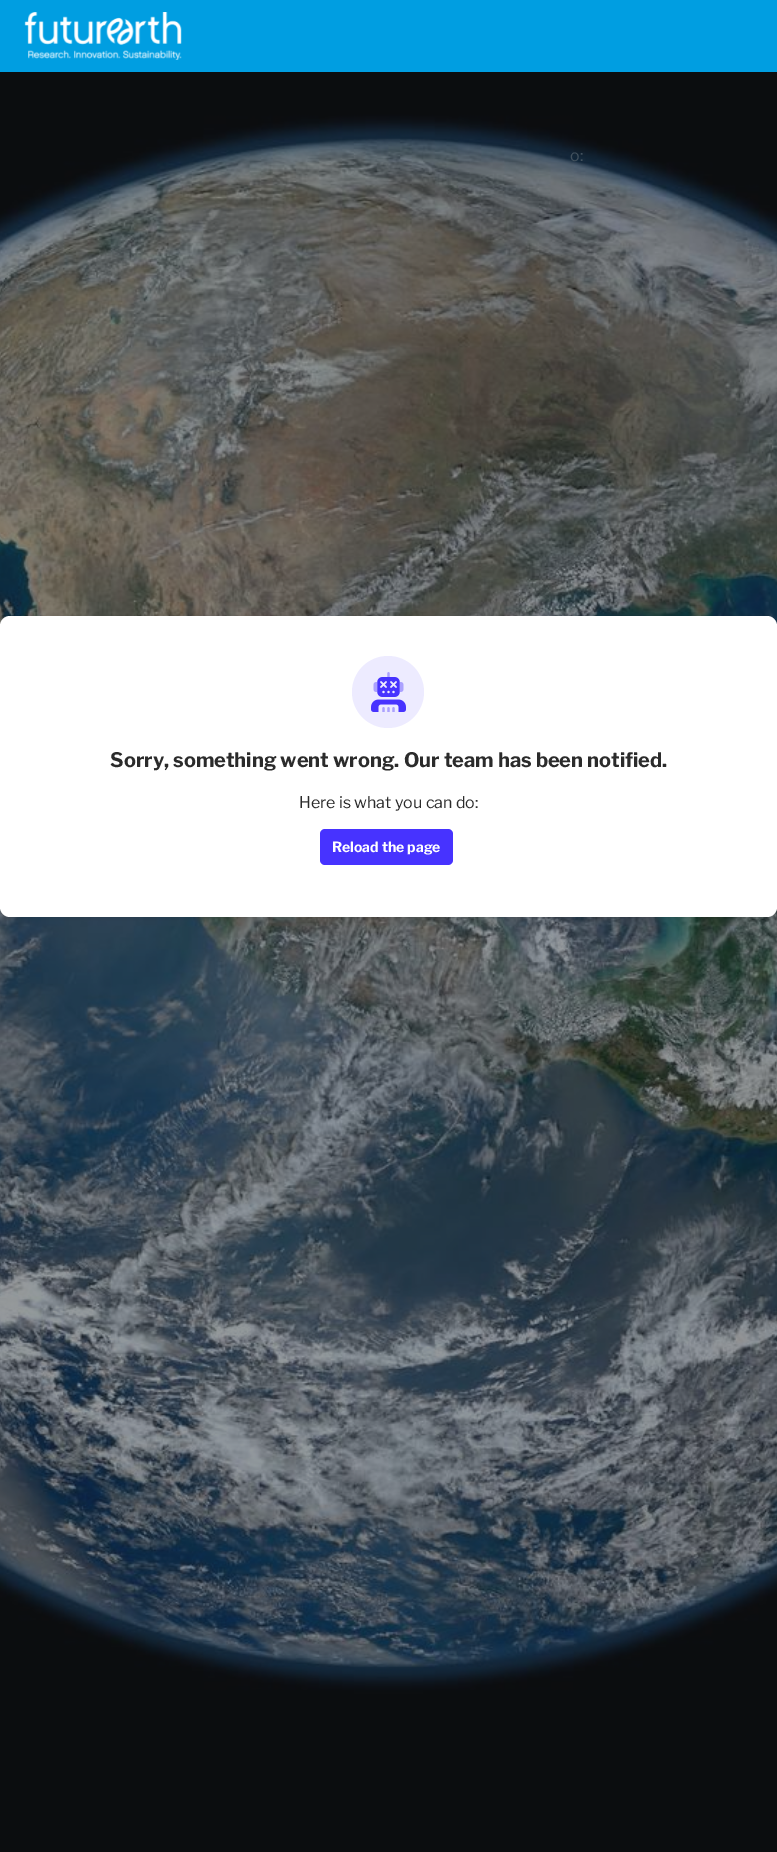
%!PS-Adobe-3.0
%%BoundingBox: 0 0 777 1852
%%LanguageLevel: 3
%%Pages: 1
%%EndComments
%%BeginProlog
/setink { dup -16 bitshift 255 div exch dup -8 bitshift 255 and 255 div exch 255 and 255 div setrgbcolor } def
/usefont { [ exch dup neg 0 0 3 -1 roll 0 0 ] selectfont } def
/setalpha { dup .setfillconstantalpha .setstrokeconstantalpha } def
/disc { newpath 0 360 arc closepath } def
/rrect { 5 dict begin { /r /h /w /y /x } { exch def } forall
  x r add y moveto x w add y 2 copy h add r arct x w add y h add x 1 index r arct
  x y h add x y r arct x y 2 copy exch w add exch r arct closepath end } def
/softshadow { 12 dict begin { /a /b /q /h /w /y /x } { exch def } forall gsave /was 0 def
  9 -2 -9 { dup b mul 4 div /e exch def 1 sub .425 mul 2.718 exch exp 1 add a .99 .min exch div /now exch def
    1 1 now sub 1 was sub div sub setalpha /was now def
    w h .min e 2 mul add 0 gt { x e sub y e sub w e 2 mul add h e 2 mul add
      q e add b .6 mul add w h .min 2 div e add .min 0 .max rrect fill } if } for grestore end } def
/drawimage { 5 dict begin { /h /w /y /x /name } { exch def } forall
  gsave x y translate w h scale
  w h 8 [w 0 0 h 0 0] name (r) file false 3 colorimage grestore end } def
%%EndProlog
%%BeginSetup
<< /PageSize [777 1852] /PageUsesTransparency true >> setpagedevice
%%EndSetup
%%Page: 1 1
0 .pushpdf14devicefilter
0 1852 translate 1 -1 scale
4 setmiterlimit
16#FFFFFF setink
0 0 777 1852 rectfill
16#009EE1 setink
0 0 777 72 rectfill
(img1.raw) 24 12 158 48 drawimage
(img2.raw) 0 72 777 1780 drawimage
/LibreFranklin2-Thin 16 usefont
16#42515D setink
570 161 moveto (o:) show
16#000000 setink
0 617 777 301 10 3 0.1 softshadow
16#FFFFFF setink
0 616 777 301 10 rrect fill
16#EDEBFF setink
388 692 36 disc fill
(img3.raw) 371 672 35 40 drawimage
/LibreFranklin-Thin 20 usefont
16#2B2B2B setink
110 767 moveto (Sorry, something went wrong. Our team has been notified.) show
/LibreFranklin2-Thin 16 usefont
299 808 moveto (Here is what you can do:) show
16#4733FF setink
320 829 133 36 5 rrect fill
/LibreFranklin-Thin 14 usefont
16#FFFFFF setink
332 852 moveto (Reload the page) show
.poppdf14devicefilter showpage
%%EOF
